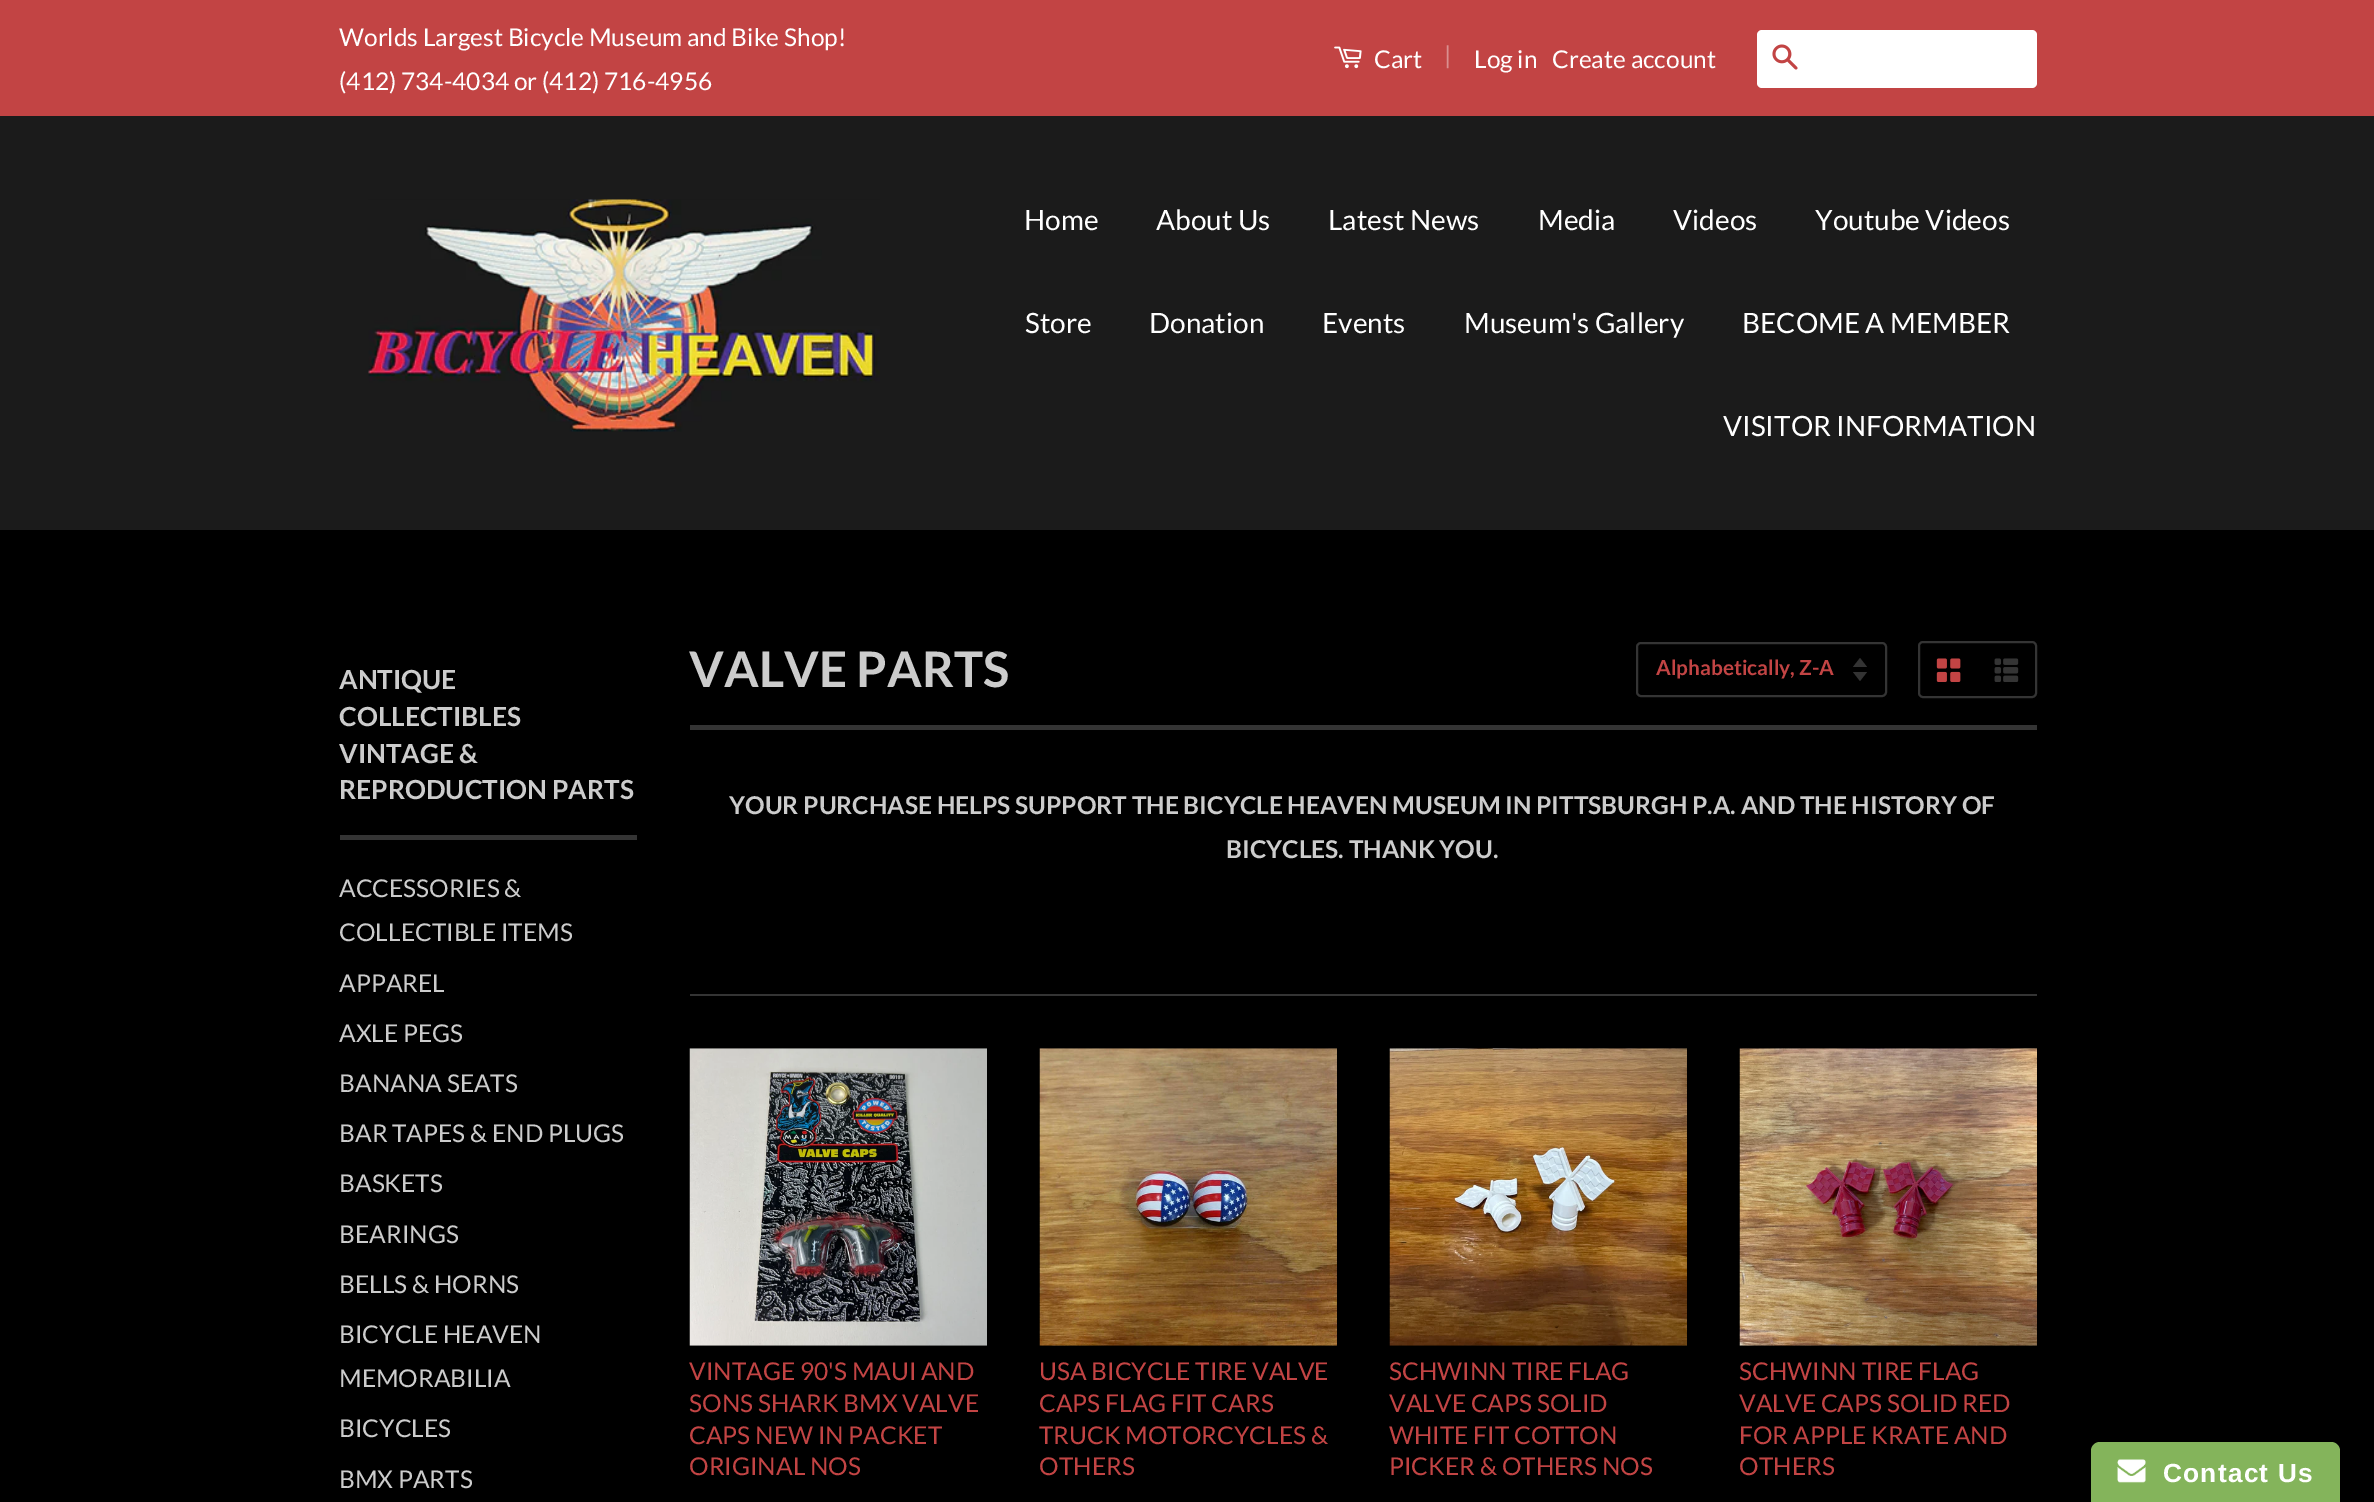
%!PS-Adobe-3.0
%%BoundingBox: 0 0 2374 1502
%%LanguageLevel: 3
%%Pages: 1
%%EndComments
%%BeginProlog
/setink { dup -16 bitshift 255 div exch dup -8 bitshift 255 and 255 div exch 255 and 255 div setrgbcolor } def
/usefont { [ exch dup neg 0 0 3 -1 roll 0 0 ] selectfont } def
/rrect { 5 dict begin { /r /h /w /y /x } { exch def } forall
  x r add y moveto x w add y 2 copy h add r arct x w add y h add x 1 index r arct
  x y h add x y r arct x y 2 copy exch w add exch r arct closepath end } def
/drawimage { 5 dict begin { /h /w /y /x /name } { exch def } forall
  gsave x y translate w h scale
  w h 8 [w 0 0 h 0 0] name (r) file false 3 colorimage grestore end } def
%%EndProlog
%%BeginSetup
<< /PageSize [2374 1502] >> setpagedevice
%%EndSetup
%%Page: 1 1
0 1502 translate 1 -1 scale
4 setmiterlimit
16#000000 setink
0 0 2374 1502 rectfill
16#C24444 setink
0 0 2374 116 rectfill
/Lato-Regular 24.5 usefont
16#FFFFFF setink
339 46 moveto (Worlds Largest Bicycle Museum and Bike Shop!) show
339 90 moveto (\(412\) 734-4034 or \(412\) 716-4956) show
(img1.raw) 1334 46 28 23 drawimage
1374 68 moveto (Cart) show
16#DA8F8F setink
1444 64 moveto (|) show
16#FFFFFF setink
1474 68 moveto (Log in) show
1552 68 moveto (Create account) show
1757 30 280 58 5 rrect fill
(img2.raw) 1772 44 26 26 drawimage
16#1B1B1B setink
0 116 2374 414 rectfill
(img3.raw) 368 199 512 233 drawimage
/Lato-Regular 28 usefont
16#FFFFFF setink
[
    [(Home) 1024 230]
    [(About Us) 1156 230]
    [(Latest News) 1328 230]
    [(Media) 1538 230]
    [(Videos) 1673 230]
    [(Youtube Videos) 1815 230]
    [(Store) 1025 333]
    [(Donation) 1149 333]
    [(Events) 1322 333]
    [(Museum's Gallery) 1464 333]
    [(BECOME A MEMBER) 1742 333]
    [(VISITOR INFORMATION) 1723 436]
] { aload pop moveto show } forall
16#343434 setink
340 835 297 5 rectfill
/Lato-Bold 26.25 usefont
16#CCCCCC setink
[
    [(ANTIQUE) 339 689]
    [(COLLECTIBLES) 339 726]
    [(VINTAGE &) 339 763]
    [(REPRODUCTION PARTS) 339 799]
] { aload pop moveto show } forall
/Lato-Regular 24.5 usefont
[
    [(ACCESSORIES &) 339 897]
    [(COLLECTIBLE ITEMS) 339 941]
    [(APPAREL) 339 992]
    [(AXLE PEGS) 339 1042]
    [(BANANA SEATS) 339 1092]
    [(BAR TAPES & END PLUGS) 339 1142]
    [(BASKETS) 339 1192]
    [(BEARINGS) 339 1243]
    [(BELLS & HORNS) 339 1293]
    [(BICYCLE HEAVEN) 339 1343]
    [(MEMORABILIA) 339 1387]
    [(BICYCLES) 339 1437]
    [(BMX PARTS) 339 1488]
] { aload pop moveto show } forall
16#343434 setink
690 725 1347 5 rectfill
/Lato-Bold 49 usefont
16#CCCCCC setink
689 687 moveto (VALVE PARTS) show
16#333333 setink
1853 672 moveto 1860 681 lineto 1867 672 lineto closepath 1860 658 moveto 1853 667 lineto 1867 667 lineto closepath fill
16#343434 setink
2 setlinewidth
1637 643 249 53 4 rrect stroke
/Lato-Bold 20.75 usefont
16#C24444 setink
1656 675 moveto (Alphabetically, Z-A) show
16#343434 setink
1919 642 117 55 4 rrect stroke
(img4.raw) 1936 658 25 24 drawimage
(img5.raw) 1994 658 25 24 drawimage
/Lato-Bold 24.5 usefont
16#CCCCCC setink
729 814 moveto (YOUR PURCHASE HELPS SUPPORT THE BICYCLE HEAVEN MUSEUM IN PITTSBURGH P.A. AND THE HISTORY OF) show
1226 858 moveto (BICYCLES. THANK YOU.) show
16#343434 setink
690 994 1347 2 rectfill
(img6.raw) 689 1048 298 298 drawimage
/Lato-Regular 24.5 usefont
16#C24444 setink
[
    [(VINTAGE 90'S MAUI AND) 689 1380]
    [(SONS SHARK BMX VALVE) 689 1412]
    [(CAPS NEW IN PACKET) 689 1444]
    [(ORIGINAL NOS) 689 1475]
] { aload pop moveto show } forall
(img7.raw) 1039 1048 298 298 drawimage
[
    [(USA BICYCLE TIRE VALVE) 1039 1380]
    [(CAPS FLAG FIT CARS) 1039 1412]
    [(TRUCK MOTORCYCLES &) 1039 1444]
    [(OTHERS) 1039 1475]
] { aload pop moveto show } forall
(img8.raw) 1389 1048 298 298 drawimage
[
    [(SCHWINN TIRE FLAG) 1389 1380]
    [(VALVE CAPS SOLID) 1389 1412]
    [(WHITE FIT COTTON) 1389 1444]
    [(PICKER & OTHERS NOS) 1389 1475]
] { aload pop moveto show } forall
(img9.raw) 1739 1048 298 298 drawimage
[
    [(SCHWINN TIRE FLAG) 1739 1380]
    [(VALVE CAPS SOLID RED) 1739 1412]
    [(FOR APPLE KRATE AND) 1739 1444]
    [(OTHERS) 1739 1475]
] { aload pop moveto show } forall
16#84B45B setink
2100 1442 moveto 2331 1442 lineto 2336 1442 2340 1446 2340 1451 curveto 2340 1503 lineto 2091 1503 lineto 2091 1451 lineto 2091 1446 2095 1442 2100 1442 curveto closepath fill
(img10.raw) 2117 1459 29 24 drawimage
/LiberationSans-Bold 26.25 usefont
16#FFFFFF setink
2163 1482 moveto 1.25 0 (Contact Us) ashow
showpage
%%EOF
